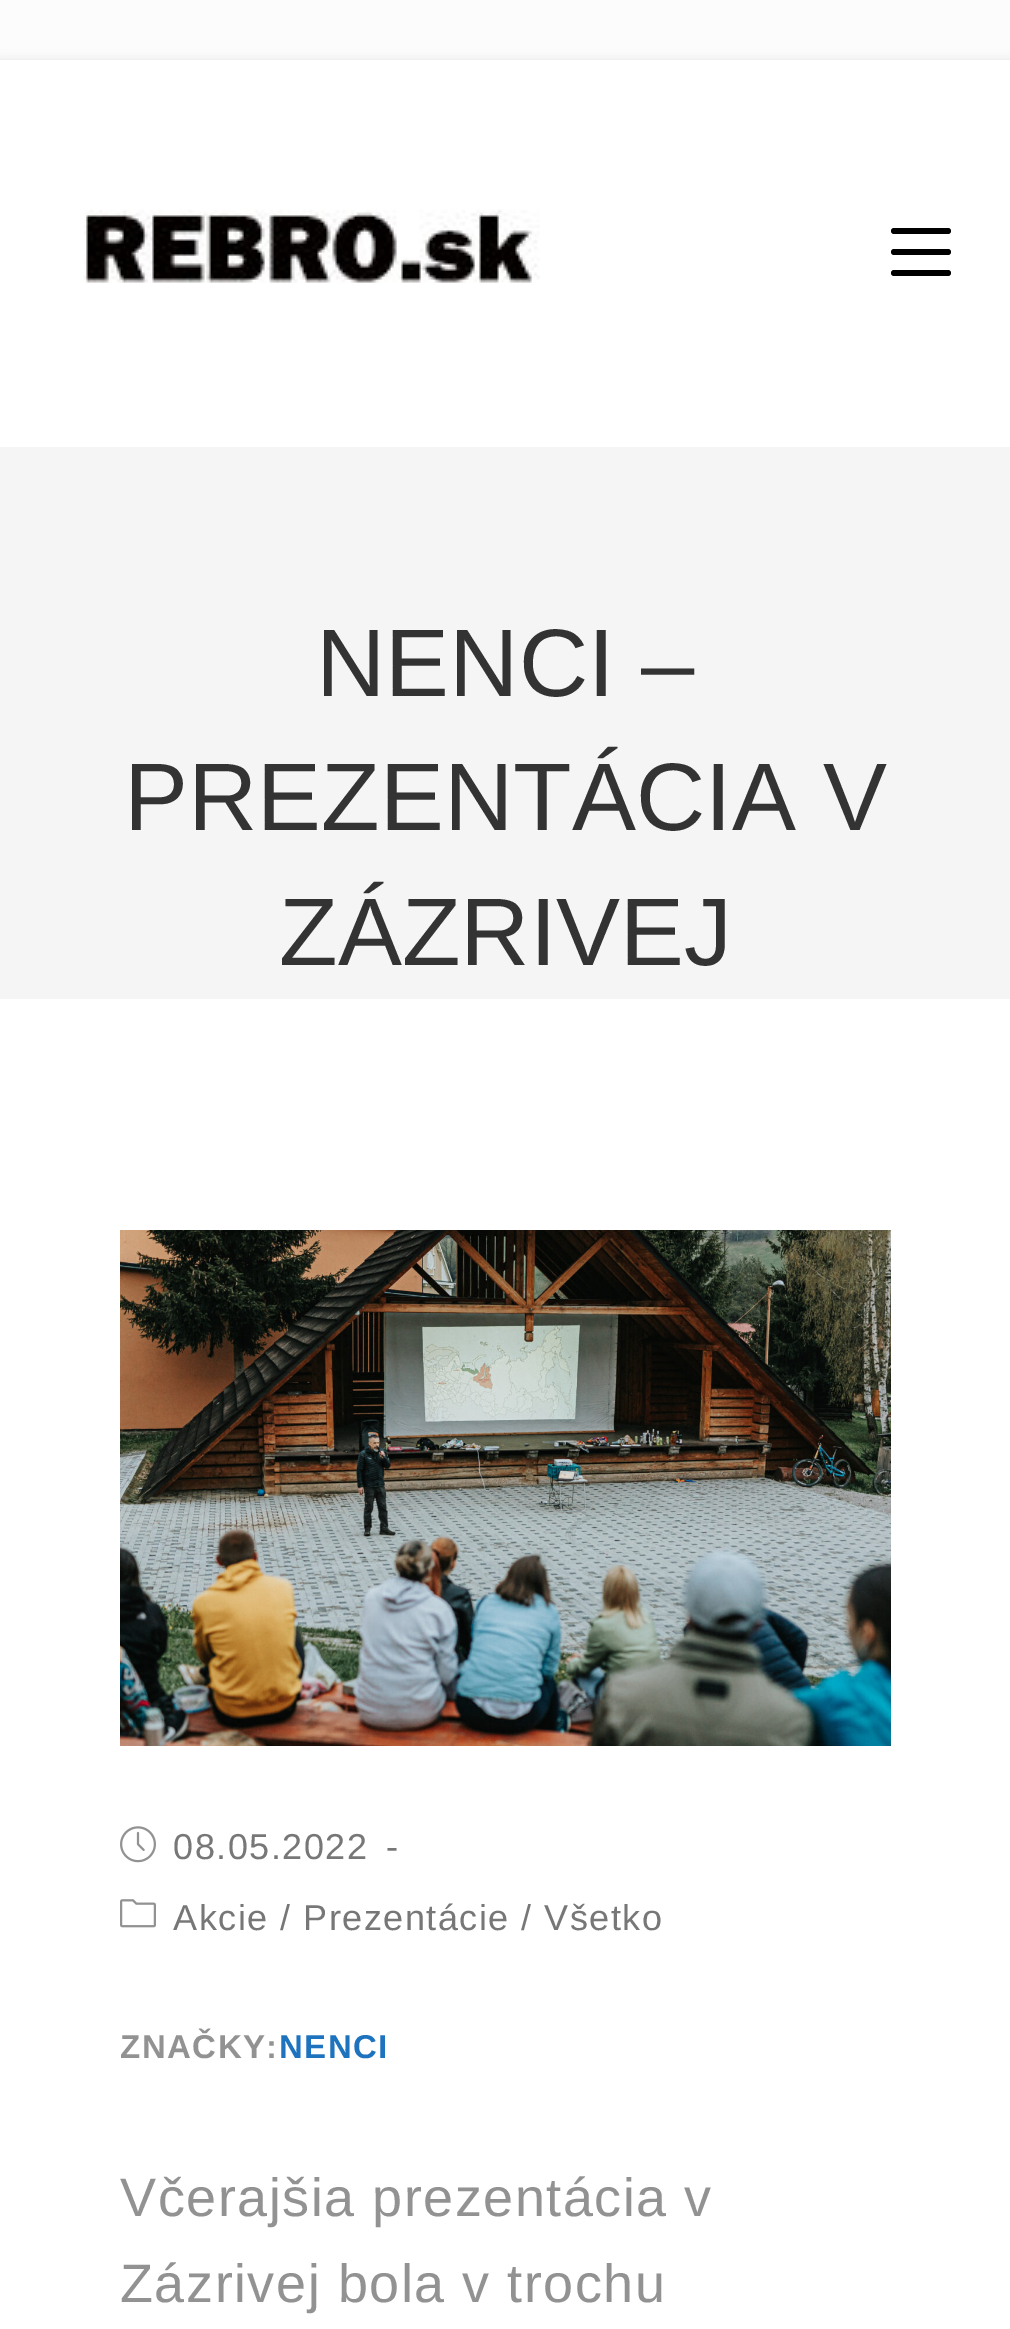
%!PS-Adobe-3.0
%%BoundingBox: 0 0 1010 2329
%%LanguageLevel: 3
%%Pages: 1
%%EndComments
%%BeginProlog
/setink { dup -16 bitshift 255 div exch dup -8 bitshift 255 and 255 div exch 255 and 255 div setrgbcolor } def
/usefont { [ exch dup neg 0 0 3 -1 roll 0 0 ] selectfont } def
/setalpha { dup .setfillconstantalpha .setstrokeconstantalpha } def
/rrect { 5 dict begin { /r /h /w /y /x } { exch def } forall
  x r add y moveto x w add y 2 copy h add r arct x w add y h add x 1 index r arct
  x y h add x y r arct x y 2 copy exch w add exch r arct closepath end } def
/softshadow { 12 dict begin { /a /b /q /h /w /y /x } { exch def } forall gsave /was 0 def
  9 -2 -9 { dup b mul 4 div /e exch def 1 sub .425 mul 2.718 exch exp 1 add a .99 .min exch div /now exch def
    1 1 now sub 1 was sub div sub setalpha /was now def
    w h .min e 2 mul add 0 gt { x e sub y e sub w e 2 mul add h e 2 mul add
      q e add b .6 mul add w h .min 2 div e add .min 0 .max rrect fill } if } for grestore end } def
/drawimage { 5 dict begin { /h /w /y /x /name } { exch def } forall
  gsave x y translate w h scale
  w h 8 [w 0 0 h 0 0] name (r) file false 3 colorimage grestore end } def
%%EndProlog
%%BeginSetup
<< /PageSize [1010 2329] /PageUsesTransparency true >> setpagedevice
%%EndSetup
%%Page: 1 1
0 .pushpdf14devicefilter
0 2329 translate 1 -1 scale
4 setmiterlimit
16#FCFCFC setink
0 0 1010 2329 rectfill
16#000000 setink
0 63 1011 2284 0 6 0.15 softshadow
16#FFFFFF setink
0 60 1010 2269 rectfill
(img1.raw) 83 209 457 74 drawimage
16#000000 setink
891 270 60 6 3 rrect fill
891 228 60 6 3 rrect fill
891 249 60 6 3 rrect fill
16#F5F5F5 setink
0 447 1010 552 rectfill
/LiberationSans-Regular 96 usefont
16#333333 setink
[
    [(NENCI –) 316 696]
    [(PREZENTÁCIA V) 124 830]
    [(ZÁZRIVEJ) 279 965]
] { aload pop moveto show } forall
(img2.raw) 120 1230 771 516 drawimage
(img3.raw) 120 1826 36 37 drawimage
/LiberationSans-Regular 36 usefont
16#777777 setink
173 1859 moveto 1.5 0 (08.05.2022) ashow
386 1859 moveto 1.5 0 (-) ashow
(img4.raw) 120 1899 36 29 drawimage
173 1930 moveto 1.5 0 (Akcie / Prezentácie / Všetko) ashow
/LiberationSans-Bold 33 usefont
16#929292 setink
120 2058 moveto 1.5 0 (ZNAČKY:) ashow
16#1E73BE setink
279 2058 moveto 1.5 0 (NENCI) ashow
/LiberationSans-Regular 54 usefont
16#929292 setink
120 2216 moveto 1.5 0 (Včerajšia prezentácia v) ashow
120 2302 moveto 1.5 0 (Zázrivej bola v trochu) ashow
.poppdf14devicefilter showpage
%%EOF
